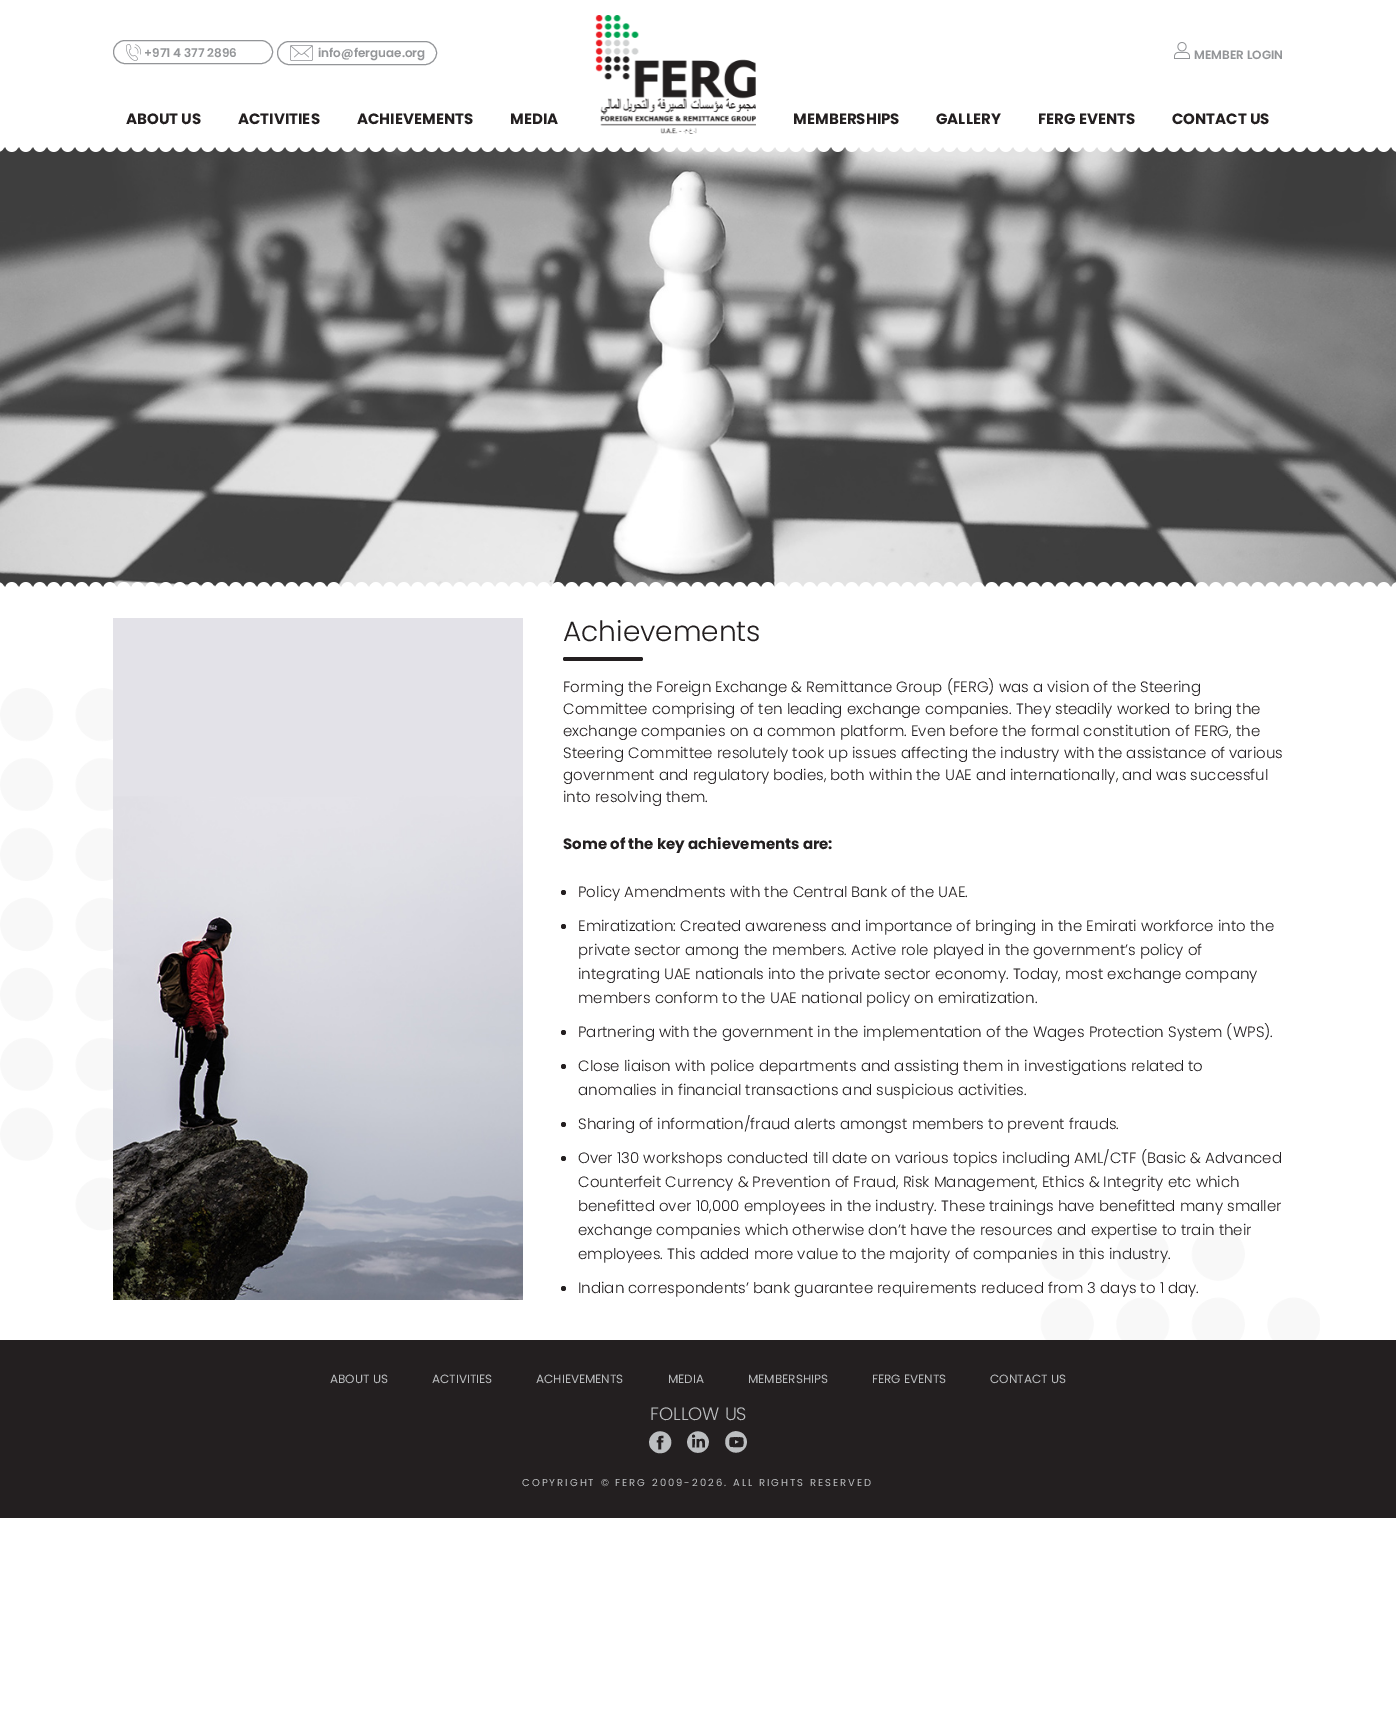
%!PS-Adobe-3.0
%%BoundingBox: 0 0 1396 1735
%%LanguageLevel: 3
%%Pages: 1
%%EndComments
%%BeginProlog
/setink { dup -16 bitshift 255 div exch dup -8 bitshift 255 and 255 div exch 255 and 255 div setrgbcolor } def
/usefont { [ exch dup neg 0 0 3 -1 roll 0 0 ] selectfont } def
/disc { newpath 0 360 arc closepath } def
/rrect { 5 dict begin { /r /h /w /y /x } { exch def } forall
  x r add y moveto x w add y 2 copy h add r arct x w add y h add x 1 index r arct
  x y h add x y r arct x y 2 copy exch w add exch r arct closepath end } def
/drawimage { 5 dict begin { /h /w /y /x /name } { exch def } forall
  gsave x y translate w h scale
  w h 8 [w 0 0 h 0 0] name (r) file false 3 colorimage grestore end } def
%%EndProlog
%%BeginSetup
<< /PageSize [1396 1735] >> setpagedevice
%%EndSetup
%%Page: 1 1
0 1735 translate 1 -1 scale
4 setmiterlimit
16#FFFFFF setink
0 0 1396 1735 rectfill
(img1.raw) 126 44 15 17 drawimage
16#939598 setink
113.5 40.5 159 23 11.5 rrect stroke
/Poppins-SemiBold 12 usefont
144 57 moveto (+971 4 377 2896) show
(img2.raw) 290 45 23 16 drawimage
277.5 41.5 159 23 11.5 rrect stroke
318 57 moveto (info@ferguae.org) show
(img3.raw) 1174 42 16 17 drawimage
1194 59 moveto (MEMBER LOGIN) show
/Poppins-Bold 15 usefont
16#231F20 setink
[
    [(ABOUT US) 126 124]
    [(ACTIVITIES) 238 124]
    [(ACHIEVEMENTS) 357 124]
    [(MEDIA) 510 124]
] { aload pop moveto show } forall
(img4.raw) 595 15 161 119 drawimage
[
    [(MEMBERSHIPS) 793 124]
    [(GALLERY) 936 124]
    [(FERG EVENTS) 1038 124]
    [(CONTACT US) 1172 124]
] { aload pop moveto show } forall
(img6.raw) 0 147 1396 440 drawimage
(img5.raw) 0 146 1396 6 drawimage
(img7.raw) 0 582 1396 6 drawimage
(img8.raw) 0 688 1320 652 drawimage
(img9.raw) 113 618 410 682 drawimage
/Poppins-Light 28 usefont
563 641 moveto (Achievements) show
563 657 80 4 2 rrect fill
/Poppins-Light 15 usefont
[
    [(Forming the Foreign Exchange & Remittance Group \(FERG\) was a vision of the Steering) 563 692]
    [(Committee comprising of ten leading exchange companies. They steadily worked to bring the) 563 714]
    [(exchange companies on a common platform. Even before the formal constitution of FERG, the) 563 736]
    [(Steering Committee resolutely took up issues affecting the industry with the assistance of various) 563 758]
    [(government and regulatory bodies, both within the UAE and internationally, and was successful) 563 780]
    [(into resolving them.) 563 802]
] { aload pop moveto show } forall
/Poppins-Bold 15 usefont
563 849 moveto (Some of the key achievements are:) show
563.5 892.5 2.5 disc fill
/Poppins-Light 15 usefont
578 897 moveto (Policy Amendments with the Central Bank of the UAE.) show
563.5 926.5 2.5 disc fill
[
    [(Emiratization: Created awareness and importance of bringing in the Emirati workforce into the) 578 931]
    [(private sector among the members. Active role played in the government’s policy of) 578 955]
    [(integrating UAE nationals into the private sector economy. Today, most exchange company) 578 979]
    [(members conform to the UAE national policy on emiratization.) 578 1003]
] { aload pop moveto show } forall
563.5 1032.5 2.5 disc fill
578 1037 moveto (Partnering with the government in the implementation of the Wages Protection System \(WPS\).) show
563.5 1066.5 2.5 disc fill
578 1071 moveto (Close liaison with police departments and assisting them in investigations related to) show
578 1095 moveto (anomalies in financial transactions and suspicious activities.) show
563.5 1124.5 2.5 disc fill
578 1129 moveto (Sharing of information/fraud alerts amongst members to prevent frauds.) show
563.5 1158.5 2.5 disc fill
[
    [(Over 130 workshops conducted till date on various topics including AML/CTF \(Basic & Advanced) 578 1163]
    [(Counterfeit Currency & Prevention of Fraud, Risk Management, Ethics & Integrity etc which) 578 1187]
    [(benefitted over 10,000 employees in the industry. These trainings have benefitted many smaller) 578 1211]
    [(exchange companies which otherwise don’t have the resources and expertise to train their) 578 1235]
    [(employees. This added more value to the majority of companies in this industry.) 578 1259]
] { aload pop moveto show } forall
563.5 1288.5 2.5 disc fill
578 1293 moveto (Indian correspondents’ bank guarantee requirements reduced from 3 days to 1 day.) show
0 1340 1396 178 rectfill
/Poppins-Regular 12 usefont
16#BCBEC0 setink
[
    [(ABOUT US) 330 1383]
    [(ACTIVITIES) 432 1383]
    [(ACHIEVEMENTS) 536 1383]
    [(MEDIA) 668 1383]
    [(MEMBERSHIPS) 748 1383]
    [(FERG EVENTS) 872 1383]
    [(CONTACT US) 990 1383]
] { aload pop moveto show } forall
/Poppins-Light 18 usefont
650 1420 moveto (FOLLOW US) show
/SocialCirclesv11-Regular 40 usefont
[
    [(f) 646 1456]
    [(l) 684 1456]
    [(y) 722 1456]
] { aload pop moveto show } forall
/Poppins-Regular 10 usefont
522 1486 moveto 2 0 (COPYRIGHT © FERG 2009-2026. ALL RIGHTS RESERVED) ashow
showpage
%%EOF
